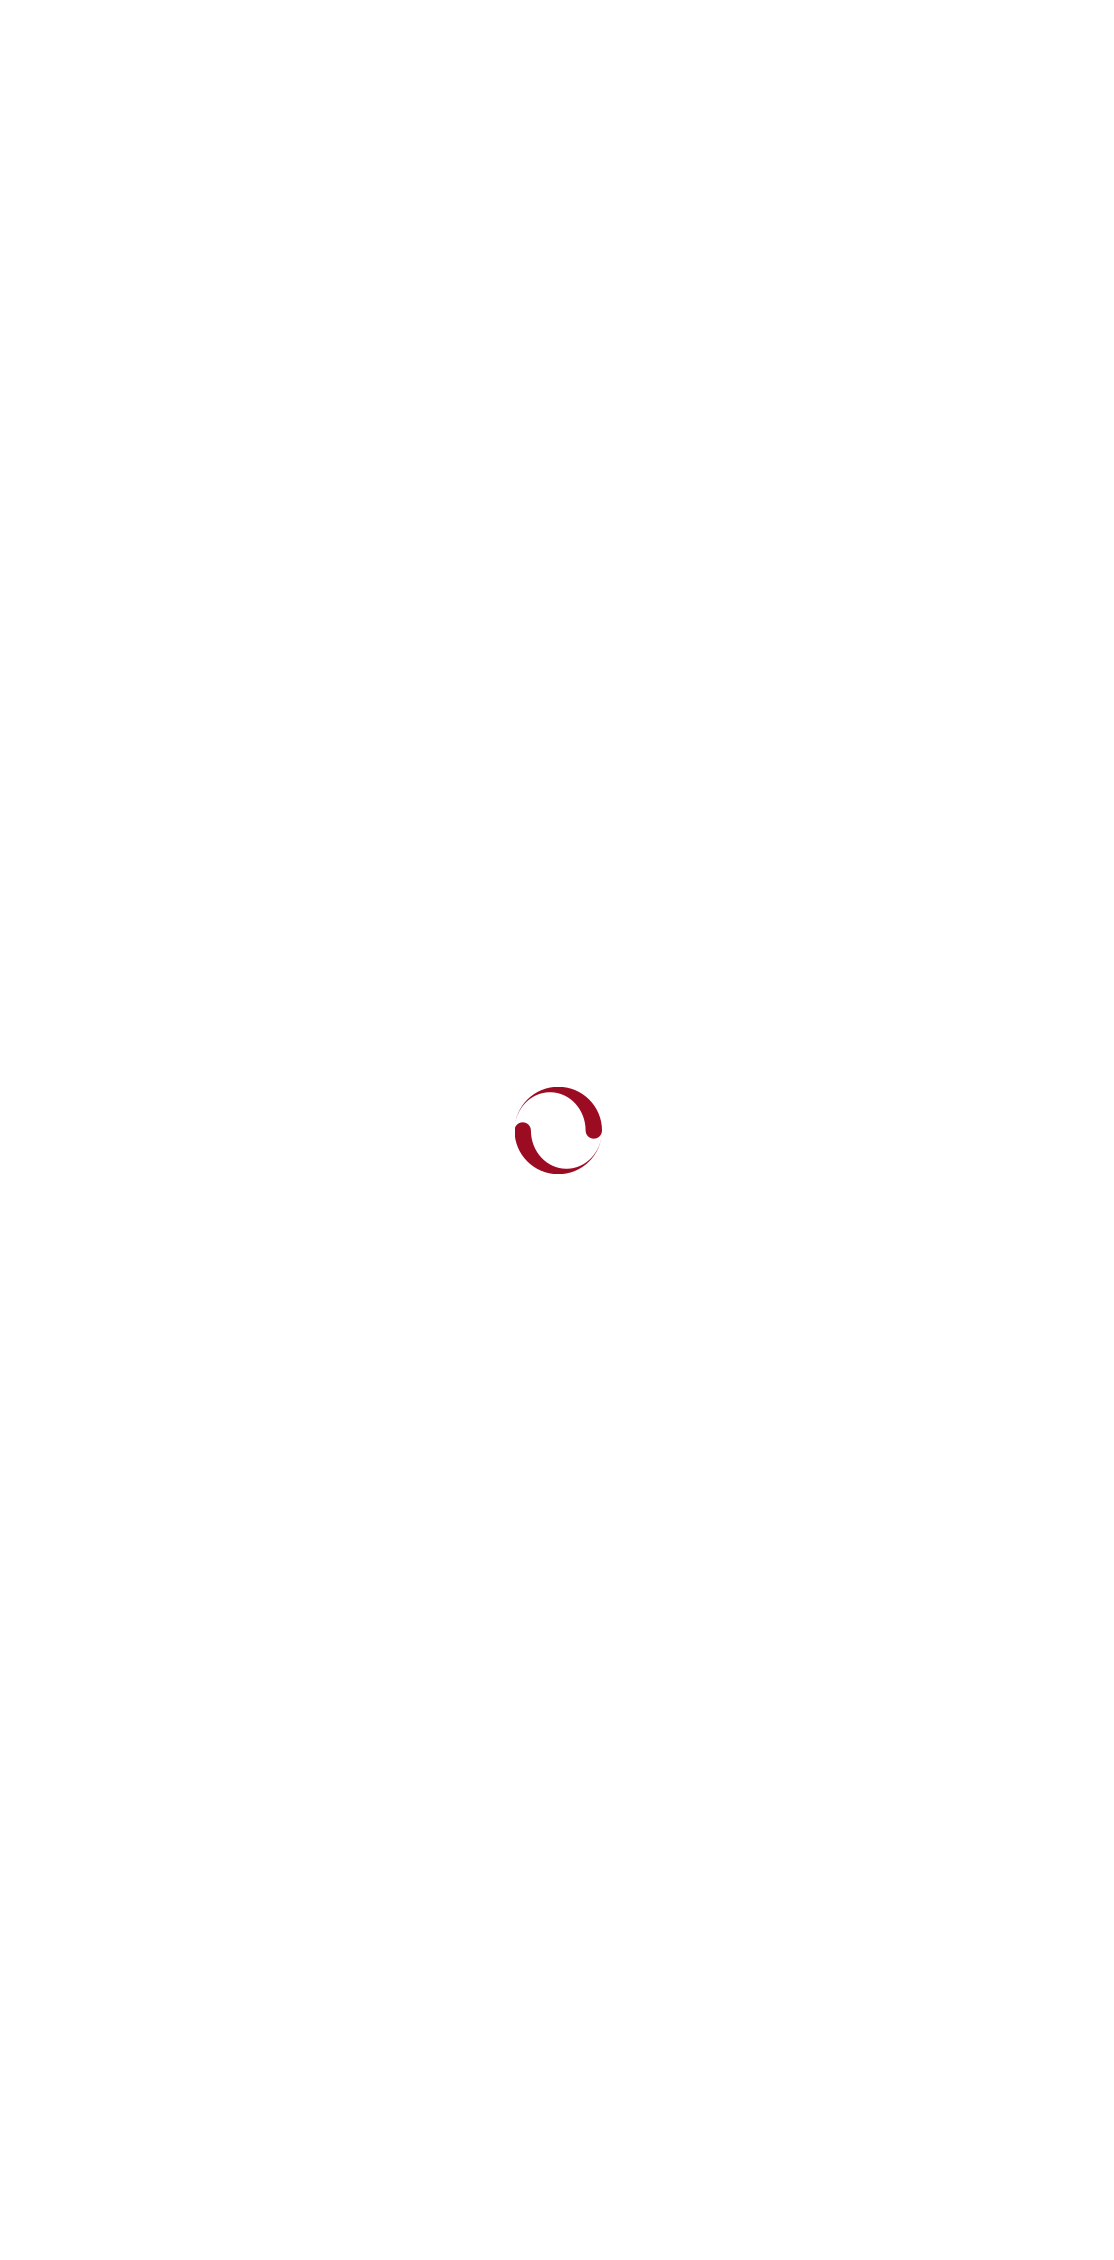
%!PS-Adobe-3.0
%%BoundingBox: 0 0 1114 2260
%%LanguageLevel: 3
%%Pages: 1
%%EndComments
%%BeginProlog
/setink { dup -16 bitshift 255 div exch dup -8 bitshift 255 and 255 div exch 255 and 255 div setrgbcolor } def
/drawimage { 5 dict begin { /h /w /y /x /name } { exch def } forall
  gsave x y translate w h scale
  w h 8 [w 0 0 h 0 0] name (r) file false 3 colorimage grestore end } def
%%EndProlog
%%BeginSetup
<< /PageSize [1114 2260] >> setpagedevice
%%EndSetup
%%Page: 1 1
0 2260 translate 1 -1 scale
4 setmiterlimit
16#FFFFFF setink
0 0 1114 2260 rectfill
(img1.raw) 515 1087 87 87 drawimage
showpage
%%EOF
